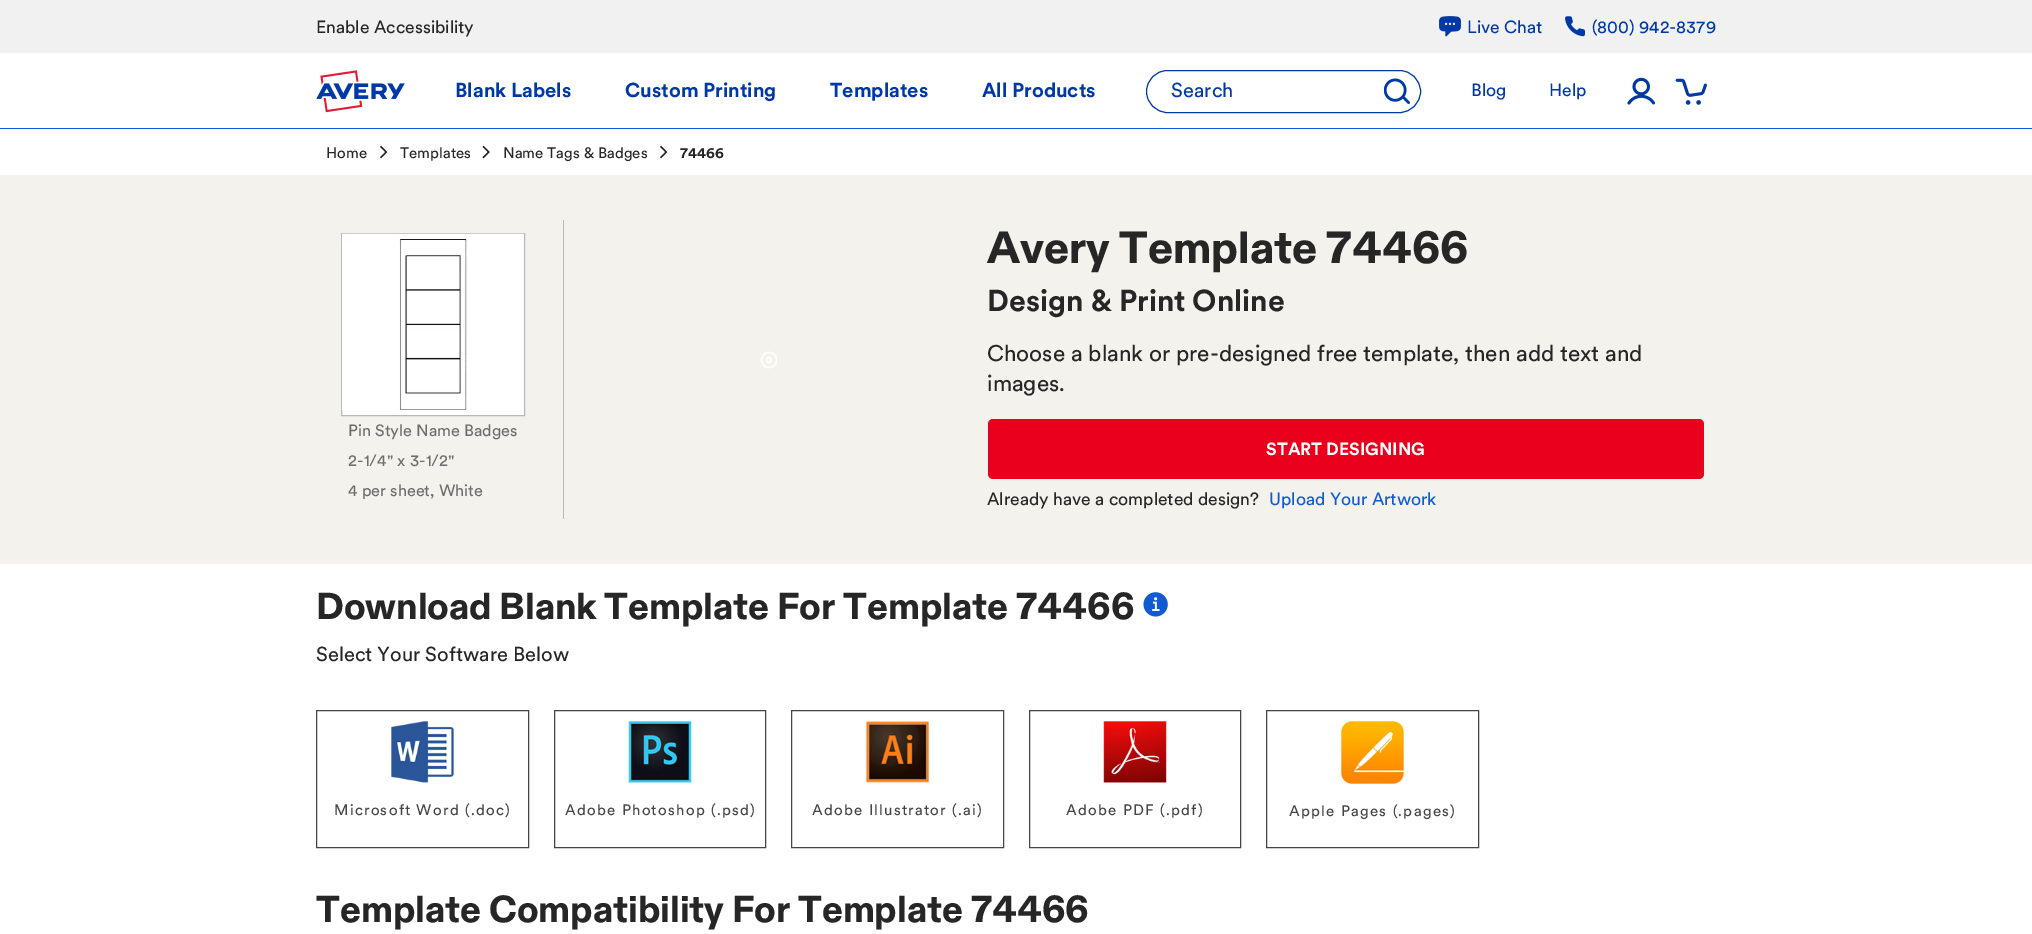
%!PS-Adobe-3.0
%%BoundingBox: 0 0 2032 934
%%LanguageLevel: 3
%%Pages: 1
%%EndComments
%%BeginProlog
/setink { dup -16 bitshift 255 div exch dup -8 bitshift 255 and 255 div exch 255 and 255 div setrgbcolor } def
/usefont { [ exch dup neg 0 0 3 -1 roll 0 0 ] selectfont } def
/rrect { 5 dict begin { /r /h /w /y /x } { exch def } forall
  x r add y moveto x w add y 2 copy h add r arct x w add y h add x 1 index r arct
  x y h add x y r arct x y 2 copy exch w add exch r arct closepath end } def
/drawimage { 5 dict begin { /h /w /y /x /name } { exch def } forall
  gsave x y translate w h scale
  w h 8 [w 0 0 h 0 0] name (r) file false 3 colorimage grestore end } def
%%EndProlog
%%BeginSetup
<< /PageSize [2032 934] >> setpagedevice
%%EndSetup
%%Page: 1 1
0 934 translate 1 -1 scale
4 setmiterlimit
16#FFFFFF setink
0 0 2032 934 rectfill
16#F1F1F1 setink
0 0 2032 53 rectfill
/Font-Regular 17.5 usefont
16#262626 setink
316 33 moveto (Enable Accessibility) show
(img1.raw) 1439 16 22 21 drawimage
16#0039A6 setink
1467 33 moveto (Live Chat) show
(img2.raw) 1565 16 20 21 drawimage
1592 33 moveto (\(800\) 942-8379) show
16#105BD2 setink
0 128 2032 1 rectfill
(img3.raw) 316 70 89 43 drawimage
/Font-Bold 20 usefont
16#0039A6 setink
[
    [(Blank Labels) 455 97]
    [(Custom Printing) 625 97]
    [(Templates) 830 97]
    [(All Products) 982 97]
] { aload pop moveto show } forall
1146.5 70.5 274 42 21 rrect stroke
/Font-Regular 20 usefont
1171 97 moveto (Search) show
(img4.raw) 1384 78 26 26 drawimage
/Font-Regular 17.5 usefont
1471 96 moveto (Blog) show
1549 96 moveto (Help) show
(img5.raw) 1627 77 28 28 drawimage
(img6.raw) 1675 78 32 27 drawimage
/Font-Regular 15 usefont
16#262626 setink
326 158 moveto (Home) show
(img7.raw) 380 145 8 14 drawimage
400 158 moveto (Templates) show
(img8.raw) 482 145 8 14 drawimage
503 158 moveto (Name Tags & Badges) show
(img7.raw) 660 145 8 14 drawimage
/Font-Bold 15 usefont
680 158 moveto (74466) show
16#F3F2ED setink
0 175 2032 389 rectfill
(img9.raw) 760 351 18 18 drawimage
/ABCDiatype-Black 45 usefont
16#262626 setink
987 263 moveto (Avery Template 74466) show
/Font-Bold 30 usefont
987 311 moveto (Design & Print Online) show
/Font-Regular 22.5 usefont
987 361 moveto (Choose a blank or pre-designed free template, then add text and) show
987 391 moveto (images.) show
16#EA001C setink
988 419 716 60 5 rrect fill
/Font-Bold 17.5 usefont
16#FFFFFF setink
1266 455 moveto (START DESIGNING) show
/Font-Regular 17.5 usefont
16#262626 setink
987 505 moveto (Already have a completed design?) show
16#105BD2 setink
1269 505 moveto (Upload Your Artwork) show
16#B9B9B9 setink
563 220 1 299 rectfill
16#FFFFFF setink
341.5 233.5 moveto 524.5 233.5 lineto 524.5 415.5 lineto 341.5 415.5 lineto closepath gsave fill grestore
16#B9B9B9 setink
stroke
(img10.raw) 342 233 182 177 drawimage
/Font-Regular 16.25 usefont
16#6D6D6D setink
[
    [(Pin Style Name Badges) 348 436]
    [(2-1/4" x 3-1/2") 348 466]
    [(4 per sheet, White) 348 496]
] { aload pop moveto show } forall
/ABCDiatype-Black 37.5 usefont
16#262626 setink
316 619 moveto (Download Blank Template For Template 74466) show
(img11.raw) 1143 592 25 25 drawimage
/Font-Regular 20 usefont
316 661 moveto (Select Your Software Below) show
16#454545 setink
316.5 710.5 212 137 rectstroke
(img12.raw) 391 721 63 62 drawimage
/Font-Regular 15 usefont
334 815 moveto 1.25 0 (Microsoft Word \(.doc\)) ashow
554.5 710.5 211 137 rectstroke
(img13.raw) 628 721 64 62 drawimage
565 815 moveto 1.25 0 (Adobe Photoshop \(.psd\)) ashow
791.5 710.5 212 137 rectstroke
(img14.raw) 866 721 63 62 drawimage
812 815 moveto 1.25 0 (Adobe Illustrator \(.ai\)) ashow
1029.5 710.5 211 137 rectstroke
(img15.raw) 1103 721 64 62 drawimage
1066 815 moveto 1.25 0 (Adobe PDF \(.pdf\)) ashow
1266.5 710.5 212 137 rectstroke
(img16.raw) 1341 721 63 63 drawimage
1289 816 moveto 1.25 0 (Apple Pages \(.pages\)) ashow
/ABCDiatype-Black 37.5 usefont
16#262626 setink
316 922 moveto (Template Compatibility For Template 74466) show
showpage
%%EOF
